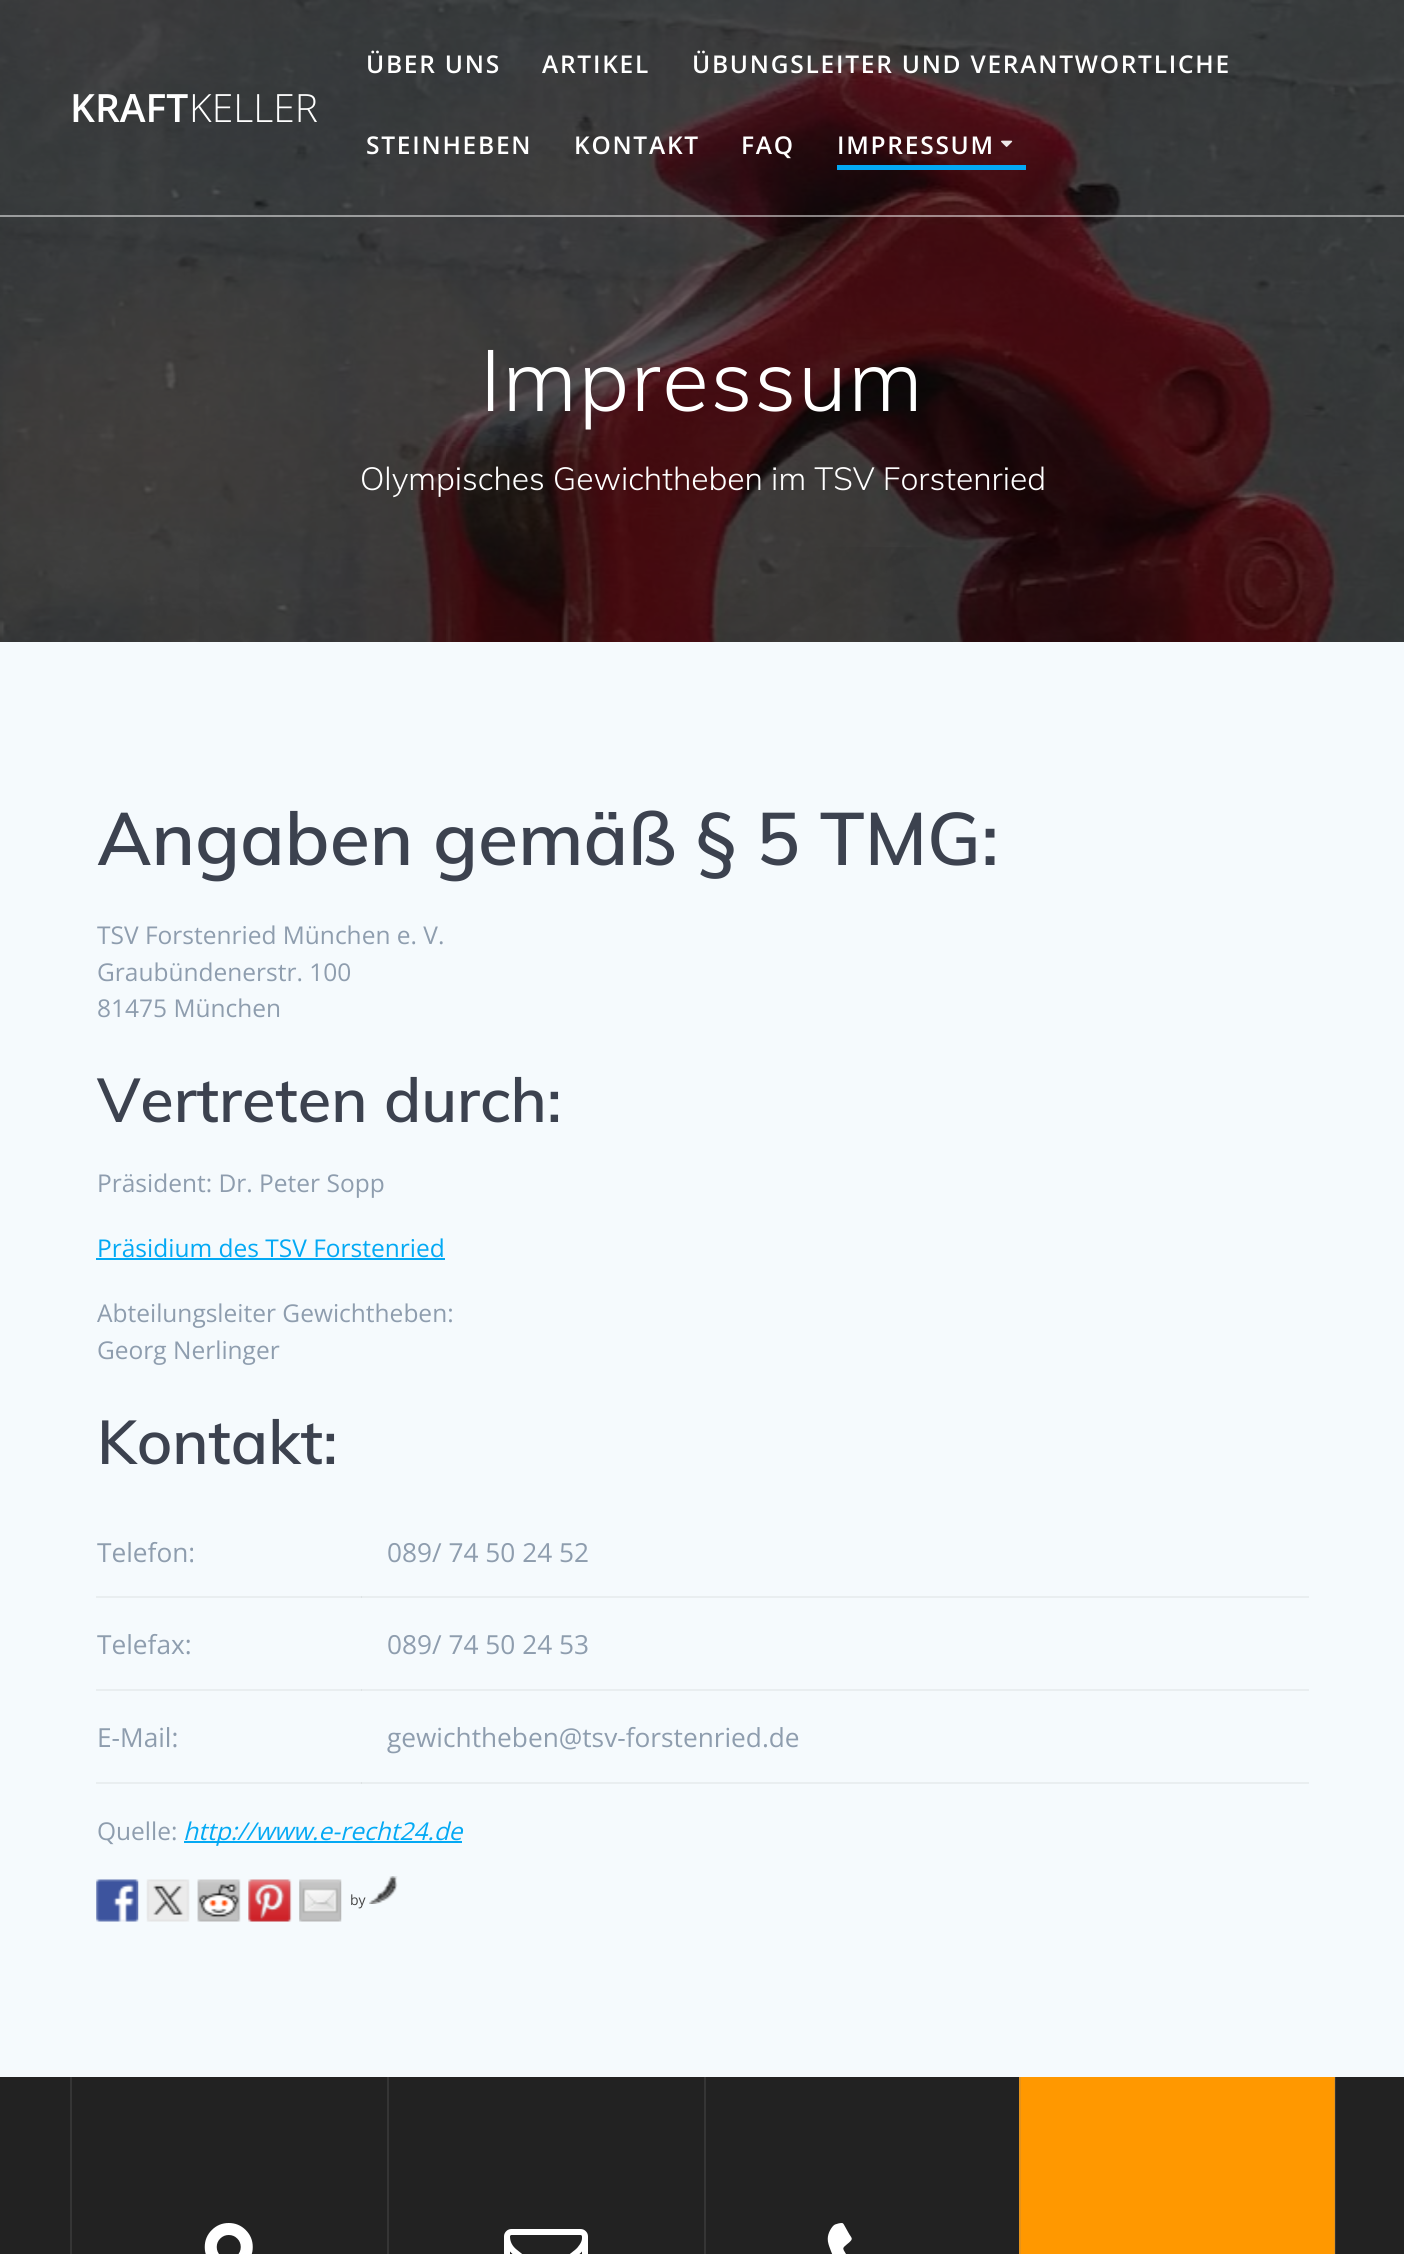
import math
import cairo

surface = cairo.ImageSurface(cairo.FORMAT_RGB24, 1404, 2254)
c = cairo.Context(surface)
options = cairo.FontOptions()
options.set_hint_metrics(cairo.HINT_METRICS_OFF)
options.set_hint_style(cairo.HINT_STYLE_NONE)
c.set_font_options(options)
c.set_miter_limit(4)
def C(code):
 c.set_source_rgb(*(v / 255 for v in bytes.fromhex(code[-6:])))
def F(family, size, italic, bold):
 c.select_font_face(family, cairo.FONT_SLANT_ITALIC if italic else cairo.FONT_SLANT_NORMAL, cairo.FONT_WEIGHT_BOLD if bold else cairo.FONT_WEIGHT_NORMAL)
 c.set_font_size(size)
def T(x, y, s):
 c.move_to(x, y)
 c.show_text(s)
def L(x, y, s, letter, word):
 c.move_to(x, y)
 for ch in s:
  c.show_text(ch)
  c.rel_move_to(letter + word * (ch == ' '), 0)
def R(x, y, w, h):
 c.rectangle(x, y, w, h)
 c.fill()
def I(path, x, y, w, h):
 c.save()
 c.set_source_surface(cairo.ImageSurface.create_from_png(path), x, y)
 c.rectangle(x, y, w, h)
 c.fill()
 c.restore()
C('ffffff')
c.paint()
I('2.png',0,0,1404,642)
c.set_source_rgba(1,1,1,0.5)
R(0,215,1404,2)
F('Open Sans SemiBold',39,0,0)
C('ffffff')
T(70,122,'KRAFT')
F('Open Sans Light',39,0,0)
T(189,122,'KELLER')
F('Open Sans SemiBold',24.5,0,0)
L(366,73,'ÜBER UNS',1.75,0)
L(542,73,'ARTIKEL',1.75,0)
L(692,73,'ÜBUNGSLEITER UND VERANTWORTLICHE',1.75,0)
L(366,154,'STEINHEBEN',1.75,0)
L(574,154,'KONTAKT',1.75,0)
L(741,154,'FAQ',1.75,0)
C('03a9f4')
R(837,165,189,5)
C('ffffff')
L(837,154,'IMPRESSUM',1.75,0)
I('1.png',1001,140,12,7)
F('Muli Light',85.75,0,0)
L(480,411,'Impressum',1.5,0)
F('Muli Light',31.85,0,0)
T(360,490,'Olympisches Gewichtheben im TSV Forstenried')
I('3.png',199,547,754,95)
C('f5fafd')
R(0,642,1404,1435)
C('e9eef0')
R(96,1596,1213,2)
R(96,1689,1213,2)
R(96,1782,1213,2)
F('Muli SemiBold',73.5,0,0)
C('3c424f')
T(97,865,'Angaben gemäß § 5 TMG:')
F('Open Sans',24.5,0,0)
C('8e9dae')
T(97,944,'TSV Forstenried München e. V.')
T(97,981,'Graubündenerstr. 100')
T(97,1017,'81475 München')
F('Muli SemiBold',61.25,0,0)
C('3c424f')
T(97,1122,'Vertreten durch:')
F('Open Sans',24.5,0,0)
C('8e9dae')
T(97,1192,'Präsident: Dr. Peter Sopp')
C('03a9f4')
T(97,1257,'Präsidium des TSV Forstenried')
R(96,1258,349,2)
C('8e9dae')
T(97,1322,'Abteilungsleiter Gewichtheben:')
T(97,1359,'Georg Nerlinger')
F('Muli SemiBold',61.25,0,0)
C('3c424f')
T(97,1464,'Kontakt:')
F('Open Sans',26.25,0,0)
C('8e9dae')
T(97,1562,'Telefon:')
C('dde2e4')
R(361,1596,1,2)
C('8e9dae')
T(387,1562,'089/ 74 50 24 52')
T(97,1654,'Telefax:')
C('dde2e4')
R(361,1689,1,2)
C('8e9dae')
T(387,1654,'089/ 74 50 24 53')
T(97,1747,'E-Mail:')
C('dde2e4')
R(361,1782,1,2)
C('8e9dae')
T(387,1747,'gewichtheben@tsv-forstenried.de')
F('Open Sans',24.5,0,0)
T(97,1840,'Quelle:')
C('03a9f4')
R(184,1841,278,2)
F('Open Sans',24.5,1,0)
T(183,1840,'http://www.e-recht24.de')
I('4.png',96,1879,43,43)
I('5.png',146,1879,44,43)
I('6.png',197,1879,44,43)
I('7.png',248,1879,44,43)
I('8.png',299,1879,43,43)
F('Open Sans',14,0,0)
C('444444')
T(350,1905,'by')
I('9.png',369,1876,29,28)
C('222222')
R(0,2077,1404,177)
C('353535')
R(1335,2077,1,177)
R(70,2077,2,177)
I('10.png',204,2223,49,31)
R(387,2077,2,177)
I('11.png',504,2229,84,25)
R(704,2077,2,177)
I('12.png',827,2223,25,31)
C('ff9800')
R(1021,2077,313,177)
C('e6931a')
R(1334,2077,1,177)
R(1019,2077,2,177)
surface.write_to_png('o.png')
